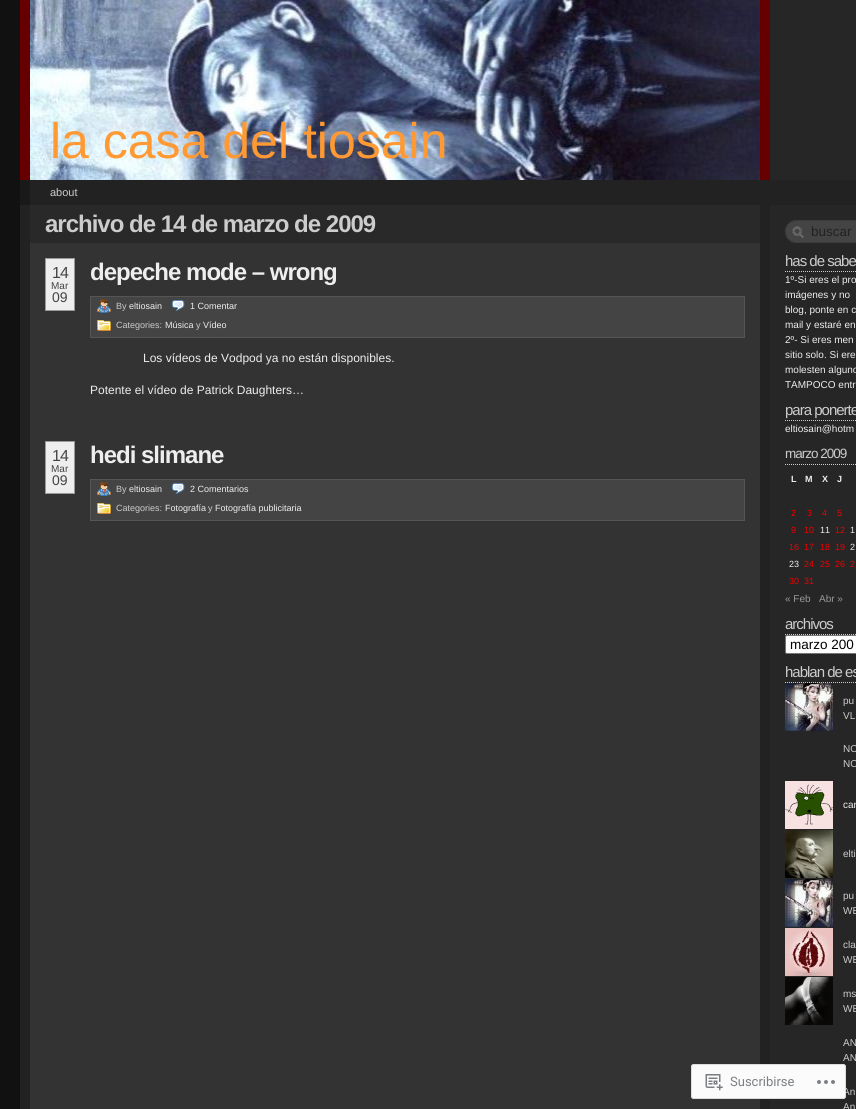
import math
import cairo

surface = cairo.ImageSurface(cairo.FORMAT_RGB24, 856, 1109)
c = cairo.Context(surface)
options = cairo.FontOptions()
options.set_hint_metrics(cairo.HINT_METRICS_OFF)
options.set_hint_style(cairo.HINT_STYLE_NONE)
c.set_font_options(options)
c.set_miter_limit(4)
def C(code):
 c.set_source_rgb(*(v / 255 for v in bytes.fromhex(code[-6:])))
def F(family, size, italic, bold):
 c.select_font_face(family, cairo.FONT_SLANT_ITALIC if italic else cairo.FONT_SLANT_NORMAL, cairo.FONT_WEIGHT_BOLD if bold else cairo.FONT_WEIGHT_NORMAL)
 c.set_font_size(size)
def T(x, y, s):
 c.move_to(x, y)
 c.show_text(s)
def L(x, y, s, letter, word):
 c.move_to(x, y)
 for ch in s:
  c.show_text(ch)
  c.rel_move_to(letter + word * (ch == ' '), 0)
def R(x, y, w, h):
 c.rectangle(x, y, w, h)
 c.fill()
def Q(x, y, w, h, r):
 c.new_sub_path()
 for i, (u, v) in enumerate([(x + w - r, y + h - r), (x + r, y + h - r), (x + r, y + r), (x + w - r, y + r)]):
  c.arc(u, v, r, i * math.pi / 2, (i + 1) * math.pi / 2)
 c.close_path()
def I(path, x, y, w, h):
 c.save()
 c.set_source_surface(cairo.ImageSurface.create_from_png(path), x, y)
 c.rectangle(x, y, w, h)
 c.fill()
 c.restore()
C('111111')
c.paint()
I('1.png',30,0,730,180)
C('660000')
R(760,0,10,180)
R(20,0,10,180)
F('Liberation Sans',50,0,0)
C('ff9933')
T(50,158,'la casa del tiosain')
C('262626')
R(770,0,86,180)
C('222222')
R(30,180,826,25)
C('191919')
R(20,180,10,25)
F('Liberation Sans',11,0,0)
C('cccccc')
T(50,196,'about')
C('333333')
R(30,243,730,866)
C('222222')
R(760,205,10,904)
R(20,205,10,904)
C('292929')
R(30,205,730,38)
F('Liberation Sans',24,0,1)
C('cccccc')
L(45,232,'archivo de 14 de marzo de 2009',-1,0)
C('eeeeee')
c.rectangle(45.5,258.5,29,52)
c.fill_preserve()
C('999999')
c.set_line_width(1)
c.stroke()
F('Liberation Sans',16,0,0)
C('444444')
L(52,278,'14',-1,0)
F('Liberation Sans',10,0,0)
T(51,289,'Mar')
F('Liberation Sans',14,0,0)
T(52,302,'09')
F('Liberation Sans',24,0,1)
C('eeeeee')
L(90,280,'depeche mode – wrong',-1,0)
C('444444')
c.rectangle(90.5,296.5,654,41)
c.fill_preserve()
C('555555')
c.stroke()
I('2.png',97,299,14,14)
F('Liberation Sans',9,0,0)
C('cccccc')
T(116,309,'By')
C('eeeeee')
T(129,309,'eltiosain')
I('3.png',171,300,14,11)
T(190,309,'1 Comentar')
I('4.png',97,320,14,11)
C('cccccc')
T(116,328,'Categories:')
C('eeeeee')
T(165,328,'Música')
C('cccccc')
T(196,328,'y')
C('eeeeee')
T(203,328,'Vídeo')
F('Liberation Sans',12,0,0)
T(143,362,'Los vídeos de Vodpod ya no están disponibles.')
T(90,394,'Potente el vídeo de Patrick Daughters…')
c.rectangle(45.5,441.5,29,52)
c.fill_preserve()
C('999999')
c.stroke()
F('Liberation Sans',16,0,0)
C('444444')
L(52,461,'14',-1,0)
F('Liberation Sans',10,0,0)
T(51,472,'Mar')
F('Liberation Sans',14,0,0)
T(52,485,'09')
F('Liberation Sans',24,0,1)
C('eeeeee')
L(90,463,'hedi slimane',-1,0)
C('444444')
c.rectangle(90.5,479.5,654,41)
c.fill_preserve()
C('555555')
c.stroke()
I('2.png',97,482,14,14)
F('Liberation Sans',9,0,0)
C('cccccc')
T(116,492,'By')
C('eeeeee')
T(129,492,'eltiosain')
I('3.png',171,483,14,11)
T(190,492,'2 Comentarios')
I('4.png',97,503,14,11)
C('cccccc')
T(116,511,'Categories:')
C('eeeeee')
T(165,511,'Fotografía')
C('cccccc')
T(208,511,'y')
C('eeeeee')
T(215,511,'Fotografía publicitaria')
C('262626')
R(770,205,86,904)
C('444444')
Q(785,220,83,23,11.5)
c.fill()
I('5.png',792,226,12,12)
c.new_path()
c.move_to(796.5,220.5)
c.line_to(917.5,220.5)
c.curve_to(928,223,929.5,237.5,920,241.5)
c.curve_to(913.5,244,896,242.5,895.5,242.5)
c.line_to(794.5,242.5)
c.curve_to(781.5,239.5,783.5,220.5,796.5,220.5)
c.close_path()
C('333333')
c.set_dash([1,1])
c.stroke()
F('Liberation Sans',13.5,0,0)
C('222222')
T(811,236,'buscar')
c.new_path()
c.move_to(785,271.5)
c.line_to(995,271.5)
C('cccccc')
c.stroke()
F('Liberation Sans',15,0,0)
L(785,266,'has de sabe',-1,0)
F('Liberation Sans',10,0,0)
C('eeeeee')
T(785,283,'1º-Si eres el pro')
T(785,298,'imágenes y no')
T(785,313,'blog, ponte en c')
T(785,328,'mail y estaré en')
T(785,343,'2º- Si eres men')
T(785,358,'sitio solo. Si ere')
T(785,373,'molesten alguno')
T(785,388,'TAMPOCO entr')
c.new_path()
c.move_to(785,420.5)
c.line_to(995,420.5)
C('cccccc')
c.stroke()
F('Liberation Sans',15,0,0)
L(785,415,'para ponerte',-1,0)
F('Liberation Sans',10,0,0)
C('eeeeee')
T(785,432,'eltiosain@hotm')
c.new_path()
c.move_to(785,464.5)
c.line_to(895,464.5)
C('cccccc')
c.stroke()
F('Liberation Sans',13.5,0,0)
L(785,458,'marzo 2009',-1,0)
F('Liberation Sans',9,0,1)
C('eeeeee')
T(791,482,'L')
T(805,482,'M')
T(822,482,'X')
T(837,482,'J')
F('Liberation Sans',9,0,0)
C('ee0000')
T(791,516,'2')
T(807,516,'3')
T(822,516,'4')
T(837,516,'5')
T(791,533,'9')
T(804,533,'10')
C('eeeeee')
T(820,533,'11')
C('ee0000')
T(835,533,'12')
C('eeeeee')
T(850,533,'1')
C('ee0000')
T(789,550,'16')
T(804,550,'17')
T(820,550,'18')
T(835,550,'19')
C('eeeeee')
T(850,550,'2')
T(789,567,'23')
C('ee0000')
T(804,567,'24')
T(820,567,'25')
T(835,567,'26')
T(850,567,'2')
T(789,584,'30')
T(804,584,'31')
F('Liberation Sans',10,0,0)
C('999999')
T(785,602,'« Feb')
T(819,602,'Abr »')
c.new_path()
c.move_to(785,634.5)
c.line_to(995,634.5)
C('cccccc')
c.stroke()
F('Liberation Sans',15,0,0)
L(785,629,'archivos',-1,0)
C('ffffff')
Q(785.5,635.5,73,18,1.5)
c.fill_preserve()
C('767676')
c.set_dash([])
c.stroke()
F('Liberation Sans',13.5,0,0)
C('000000')
T(790,649,'marzo 200')
c.new_path()
c.move_to(785,682.5)
c.line_to(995,682.5)
C('cccccc')
c.set_dash([1,1])
c.stroke()
F('Liberation Sans',15,0,0)
L(785,677,'hablan de es',-1,0)
I('6.png',785,683,48,48)
F('Liberation Sans',10,0,0)
T(843,704,'pu')
T(843,719,'VL')
T(843,752,'NO')
T(843,767,'NO')
I('7.png',785,781,48,48)
C('eeeeee')
T(843,808,'car')
I('8.png',785,830,48,48)
C('cccccc')
T(843,857,'elti')
I('6.png',785,879,48,48)
T(843,899,'pu')
T(843,914,'WE')
I('9.png',785,928,48,48)
T(843,948,'cla')
T(843,963,'WE')
I('10.png',785,977,48,48)
T(843,997,'ms')
T(843,1012,'WE')
T(843,1046,'AN')
T(843,1061,'AN')
T(843,1095,'An')
T(843,1110,'An')
c.set_source_rgba(1,1,1,0.98)
Q(691,1064,155,35,3)
c.fill()
Q(691.5,1064.5,154,34,2.5)
c.set_source_rgba(0.863,0.863,0.871,0.98)
c.set_dash([])
c.stroke()
I('11.png',705,1074,18,17)
F('Roboto',13,0,0)
C('7b7f84')
T(730,1086,'Suscribirse')
I('12.png',817,1080,18,4)
surface.write_to_png('o.png')
